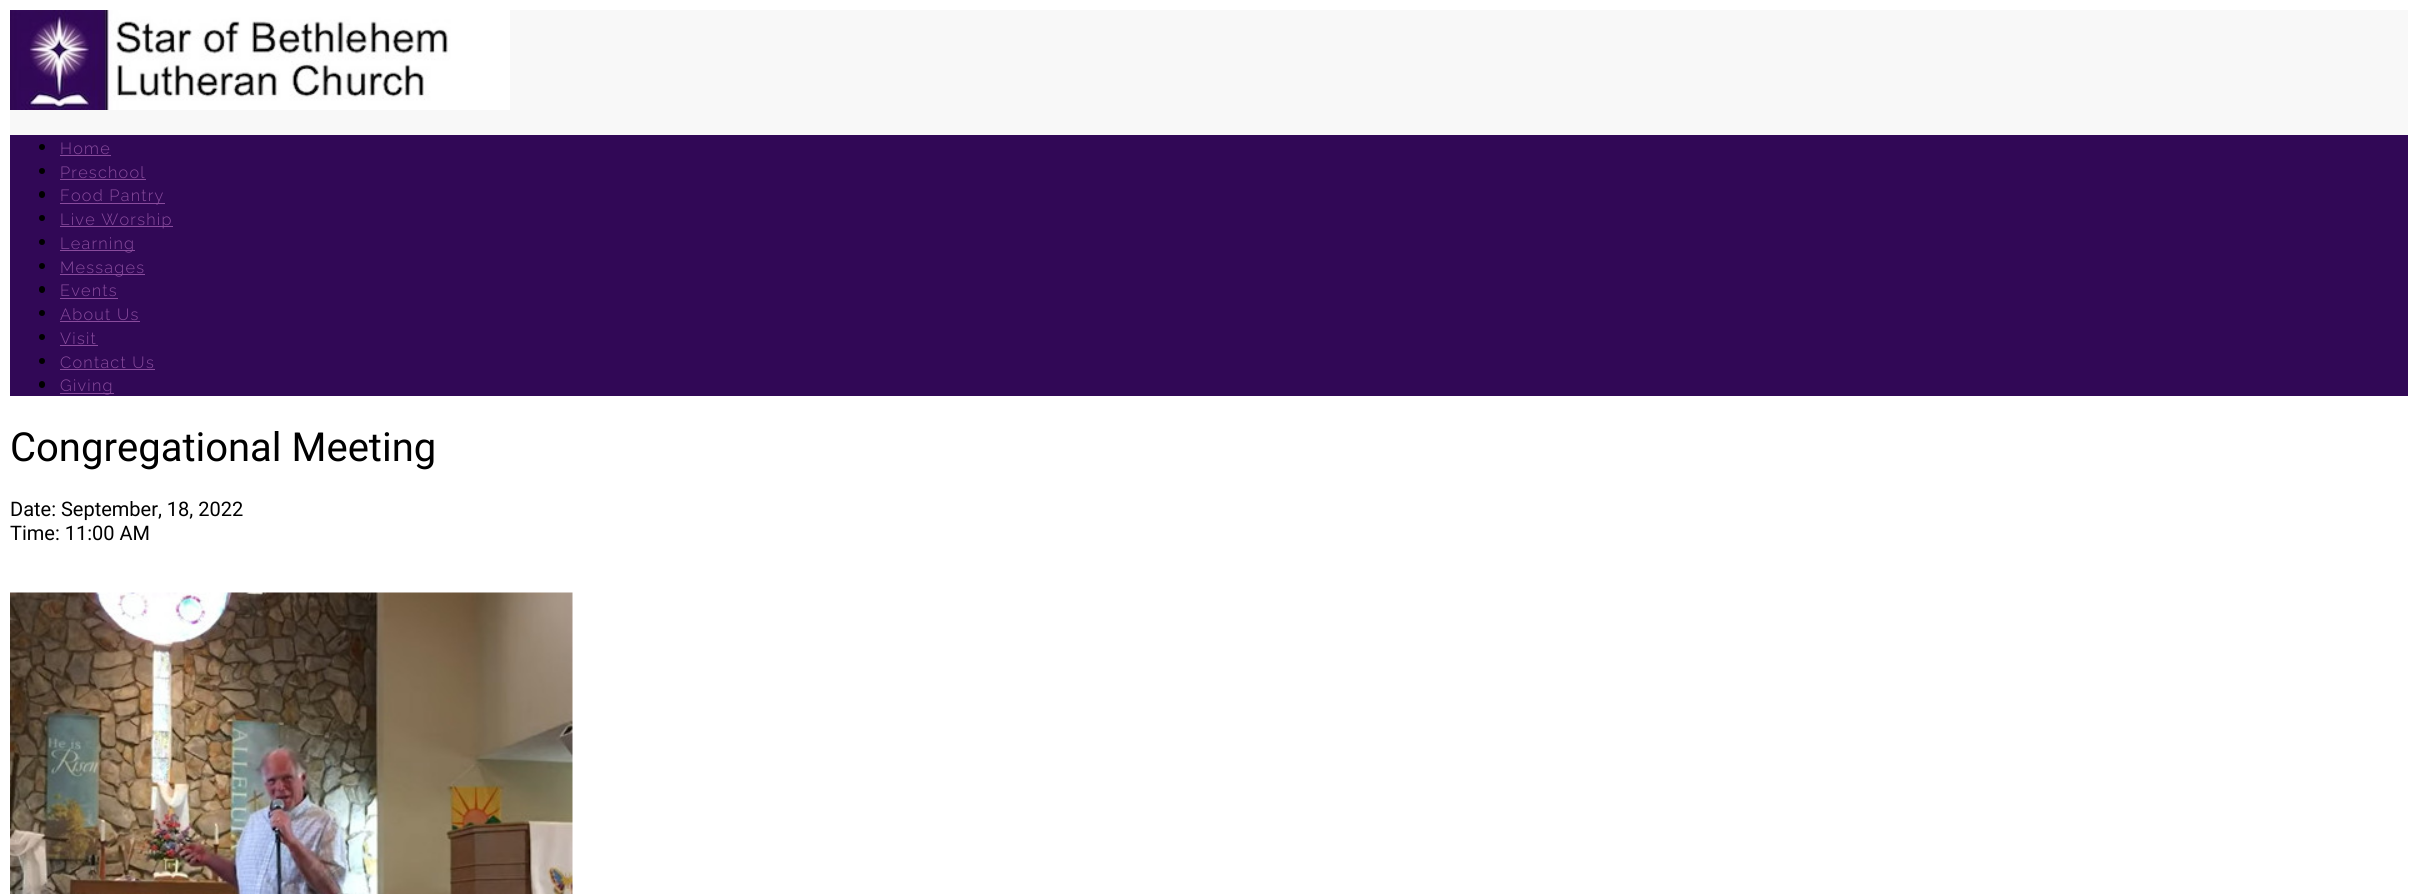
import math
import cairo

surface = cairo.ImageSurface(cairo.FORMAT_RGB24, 2417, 894)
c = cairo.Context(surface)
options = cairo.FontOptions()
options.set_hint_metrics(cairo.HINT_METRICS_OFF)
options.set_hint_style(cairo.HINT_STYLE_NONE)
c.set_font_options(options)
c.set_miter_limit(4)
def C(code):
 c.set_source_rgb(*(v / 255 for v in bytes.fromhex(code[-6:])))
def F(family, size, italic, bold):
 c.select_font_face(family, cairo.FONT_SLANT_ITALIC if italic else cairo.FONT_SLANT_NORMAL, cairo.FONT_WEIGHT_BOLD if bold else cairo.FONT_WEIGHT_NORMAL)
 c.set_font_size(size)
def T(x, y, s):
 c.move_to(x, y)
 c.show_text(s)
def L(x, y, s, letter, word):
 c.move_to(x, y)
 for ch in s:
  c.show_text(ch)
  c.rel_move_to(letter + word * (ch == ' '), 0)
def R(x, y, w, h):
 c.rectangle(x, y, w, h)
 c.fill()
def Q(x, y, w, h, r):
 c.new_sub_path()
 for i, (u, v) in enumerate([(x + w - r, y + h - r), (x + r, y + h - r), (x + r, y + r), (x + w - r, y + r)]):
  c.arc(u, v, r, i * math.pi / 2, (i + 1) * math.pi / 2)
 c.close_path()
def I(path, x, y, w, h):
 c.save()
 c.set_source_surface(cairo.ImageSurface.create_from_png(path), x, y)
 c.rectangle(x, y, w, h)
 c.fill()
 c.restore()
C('ffffff')
c.paint()
C('f8f8f8')
R(10,10,2398,125)
I('1.png',10,10,500,100)
C('310856')
R(10,135,2398,261)
C('000000')
c.arc(42,147,3,0,2 * math.pi)
c.fill()
F('Raleway Thin',16.25,0,0)
C('894b9d')
L(60,154,'Home',1.25,0)
R(60,155,51,1)
C('000000')
c.new_path()
c.arc(42,171,3,0,2 * math.pi)
c.fill()
C('894b9d')
L(60,178,'Preschool',1.25,0)
R(60,179,86,1)
C('000000')
Q(39,191,6,7,3)
c.fill()
C('894b9d')
R(60,203,105,1)
L(60,201,'Food Pantry',1.25,0)
C('000000')
c.new_path()
c.arc(42,218,3,0,2 * math.pi)
c.fill()
C('894b9d')
R(60,226,113,1)
L(60,225,'Live Worship',1.25,0)
C('000000')
c.new_path()
c.arc(42,242,3,0,2 * math.pi)
c.fill()
C('894b9d')
R(60,250,75,1)
L(60,249,'Learning',1.25,0)
C('000000')
c.new_path()
c.arc(42,266,3,0,2 * math.pi)
c.fill()
C('894b9d')
R(60,274,85,1)
L(60,273,'Messages',1.25,0)
C('000000')
Q(39,286,6,7,3)
c.fill()
C('894b9d')
L(60,296,'Events',1.25,0)
R(60,298,58,1)
C('000000')
c.new_path()
c.arc(42,313,3,0,2 * math.pi)
c.fill()
C('894b9d')
L(60,320,'About Us',1.25,0)
R(60,321,80,1)
C('000000')
c.new_path()
c.arc(42,337,3,0,2 * math.pi)
c.fill()
C('894b9d')
L(60,344,'Visit',1.25,0)
R(60,345,38,1)
C('000000')
c.new_path()
c.arc(42,361,3,0,2 * math.pi)
c.fill()
C('894b9d')
L(60,368,'Contact Us',1.25,0)
R(60,369,95,1)
C('000000')
Q(39,381,6,7,3)
c.fill()
C('894b9d')
R(60,393,54,1)
L(60,391,'Giving',1.25,0)
F('Roboto',40,0,0)
C('000000')
T(10,461,'Congregational Meeting')
F('Roboto',20,0,0)
T(10,516,'Date: September, 18, 2022')
T(10,540,'Time: 11:00 AM')
I('2.png',10,592,563,302)
surface.write_to_png('o.png')
